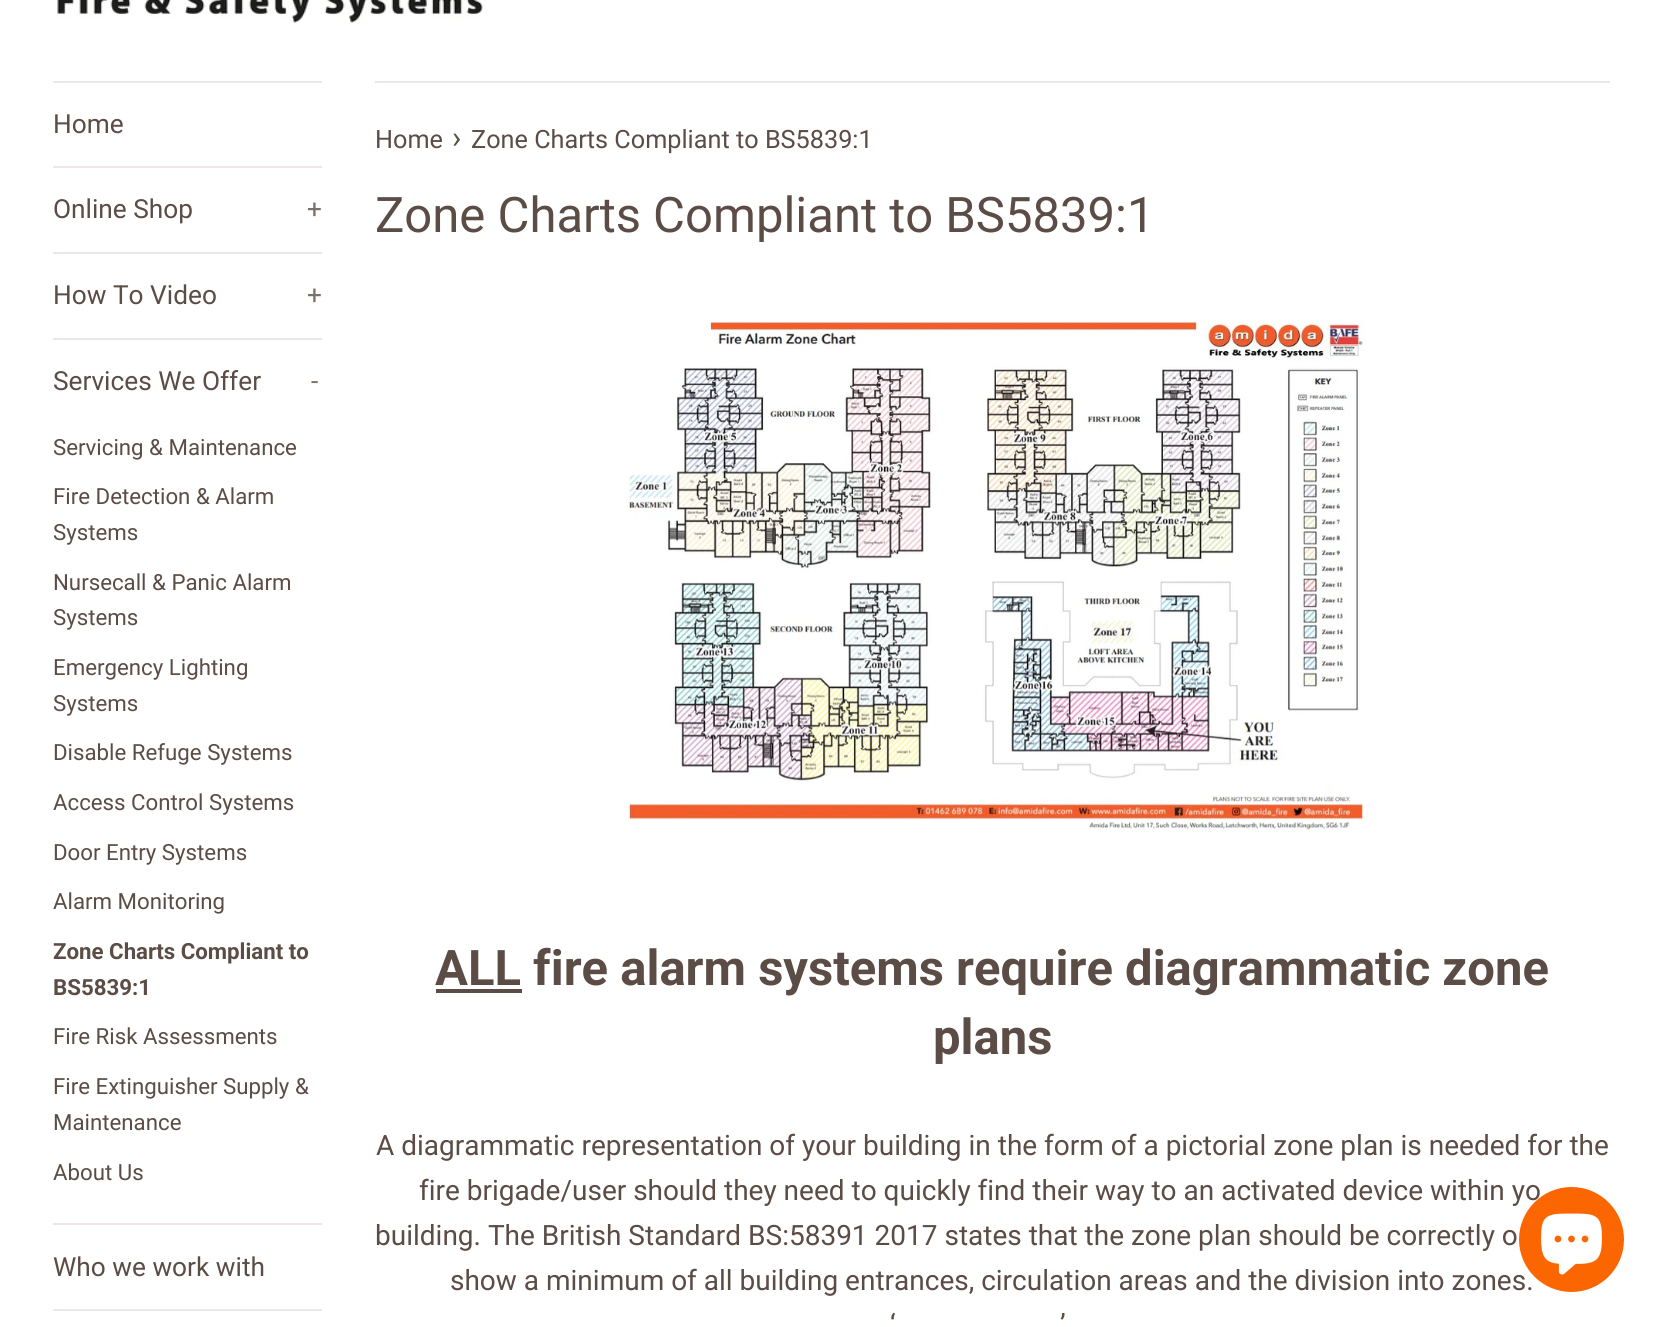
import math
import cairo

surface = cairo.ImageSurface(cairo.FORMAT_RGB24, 1662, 1327)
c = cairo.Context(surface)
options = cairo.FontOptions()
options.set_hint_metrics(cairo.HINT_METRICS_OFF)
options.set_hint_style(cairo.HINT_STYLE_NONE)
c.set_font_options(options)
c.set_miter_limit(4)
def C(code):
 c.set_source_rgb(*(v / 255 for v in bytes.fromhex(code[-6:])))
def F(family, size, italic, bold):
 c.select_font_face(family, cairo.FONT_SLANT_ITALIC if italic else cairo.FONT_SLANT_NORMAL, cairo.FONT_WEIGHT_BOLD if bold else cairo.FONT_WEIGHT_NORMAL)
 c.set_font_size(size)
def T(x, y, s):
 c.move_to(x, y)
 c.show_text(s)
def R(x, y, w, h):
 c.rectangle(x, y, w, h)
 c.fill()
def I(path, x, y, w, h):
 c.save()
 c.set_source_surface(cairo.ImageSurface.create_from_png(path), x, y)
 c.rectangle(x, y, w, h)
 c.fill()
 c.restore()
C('ffffff')
c.paint()
I('1.png',57,0,428,23)
C('ede8e7')
R(53,81,269,2)
R(53,166,269,2)
F('Roboto',26.25,0,0)
C('5b4c45')
T(53,133,'Home')
C('ede8e7')
R(53,252,269,2)
C('5b4c45')
T(53,218,'Online Shop')
C('7c706a')
T(307,218,'+')
C('ede8e7')
R(53,338,269,2)
C('5b4c45')
T(53,304,'How To Video')
C('7c706a')
T(307,304,'+')
C('ede8e7')
R(53,1223,269,2)
C('5b4c45')
T(53,390,'Services We Offer')
C('7c706a')
T(311,390,'-')
F('Roboto',22.25,0,0)
C('5b4c45')
T(53,455,'Servicing & Maintenance')
T(53,504,'Fire Detection & Alarm')
T(53,540,'Systems')
T(53,590,'Nursecall & Panic Alarm')
T(53,625,'Systems')
T(53,675,'Emergency Lighting')
T(53,711,'Systems')
T(53,760,'Disable Refuge Systems')
T(53,810,'Access Control Systems')
T(53,860,'Door Entry Systems')
T(53,909,'Alarm Monitoring')
F('Roboto',22.25,0,1)
T(53,959,'Zone Charts Compliant to')
T(53,995,'BS5839:1')
F('Roboto',22.25,0,0)
T(53,1044,'Fire Risk Assessments')
T(53,1094,'Fire Extinguisher Supply &')
T(53,1130,'Maintenance')
T(53,1180,'About Us')
C('ede8e7')
R(53,1309,269,2)
F('Roboto',26.25,0,0)
C('5b4c45')
T(53,1276,'Who we work with')
C('ede8e7')
R(375,81,1235,2)
F('Roboto',25.25,0,0)
C('5b4c45')
T(375,148,'Home')
F('Roboto',31,0,0)
T(452,148,'›')
F('Roboto',25.25,0,0)
T(471,148,'Zone Charts Compliant to BS5839:1')
F('Roboto',49,0,0)
T(375,232,'Zone Charts Compliant to BS5839:1')
I('2.png',627,320,737,513)
R(436,989,86,4)
F('Roboto',49,0,1)
T(435,985,'ALL fire alarm systems require diagrammatic zone')
T(933,1054,'plans')
F('Roboto',28,0,0)
T(376,1155,'A diagrammatic representation of your building in the form of a pictorial zone plan is needed for the')
T(419,1200,'fire brigade/user should they need to quickly find their way to an activated device within yo')
T(375,1245,'building. The British Standard BS:58391 2017 states that the zone plan should be correctly o')
T(450,1290,'show a minimum of all building entrances, circulation areas and the division into zones.')
T(890,1334,'‘')
T(1060,1334,'’')
C('fc6600')
c.new_path()
c.arc(1571.5,1239.5,52.5,0,2 * math.pi)
c.fill()
I('3.png',1541,1213,61,62)
surface.write_to_png('o.png')
